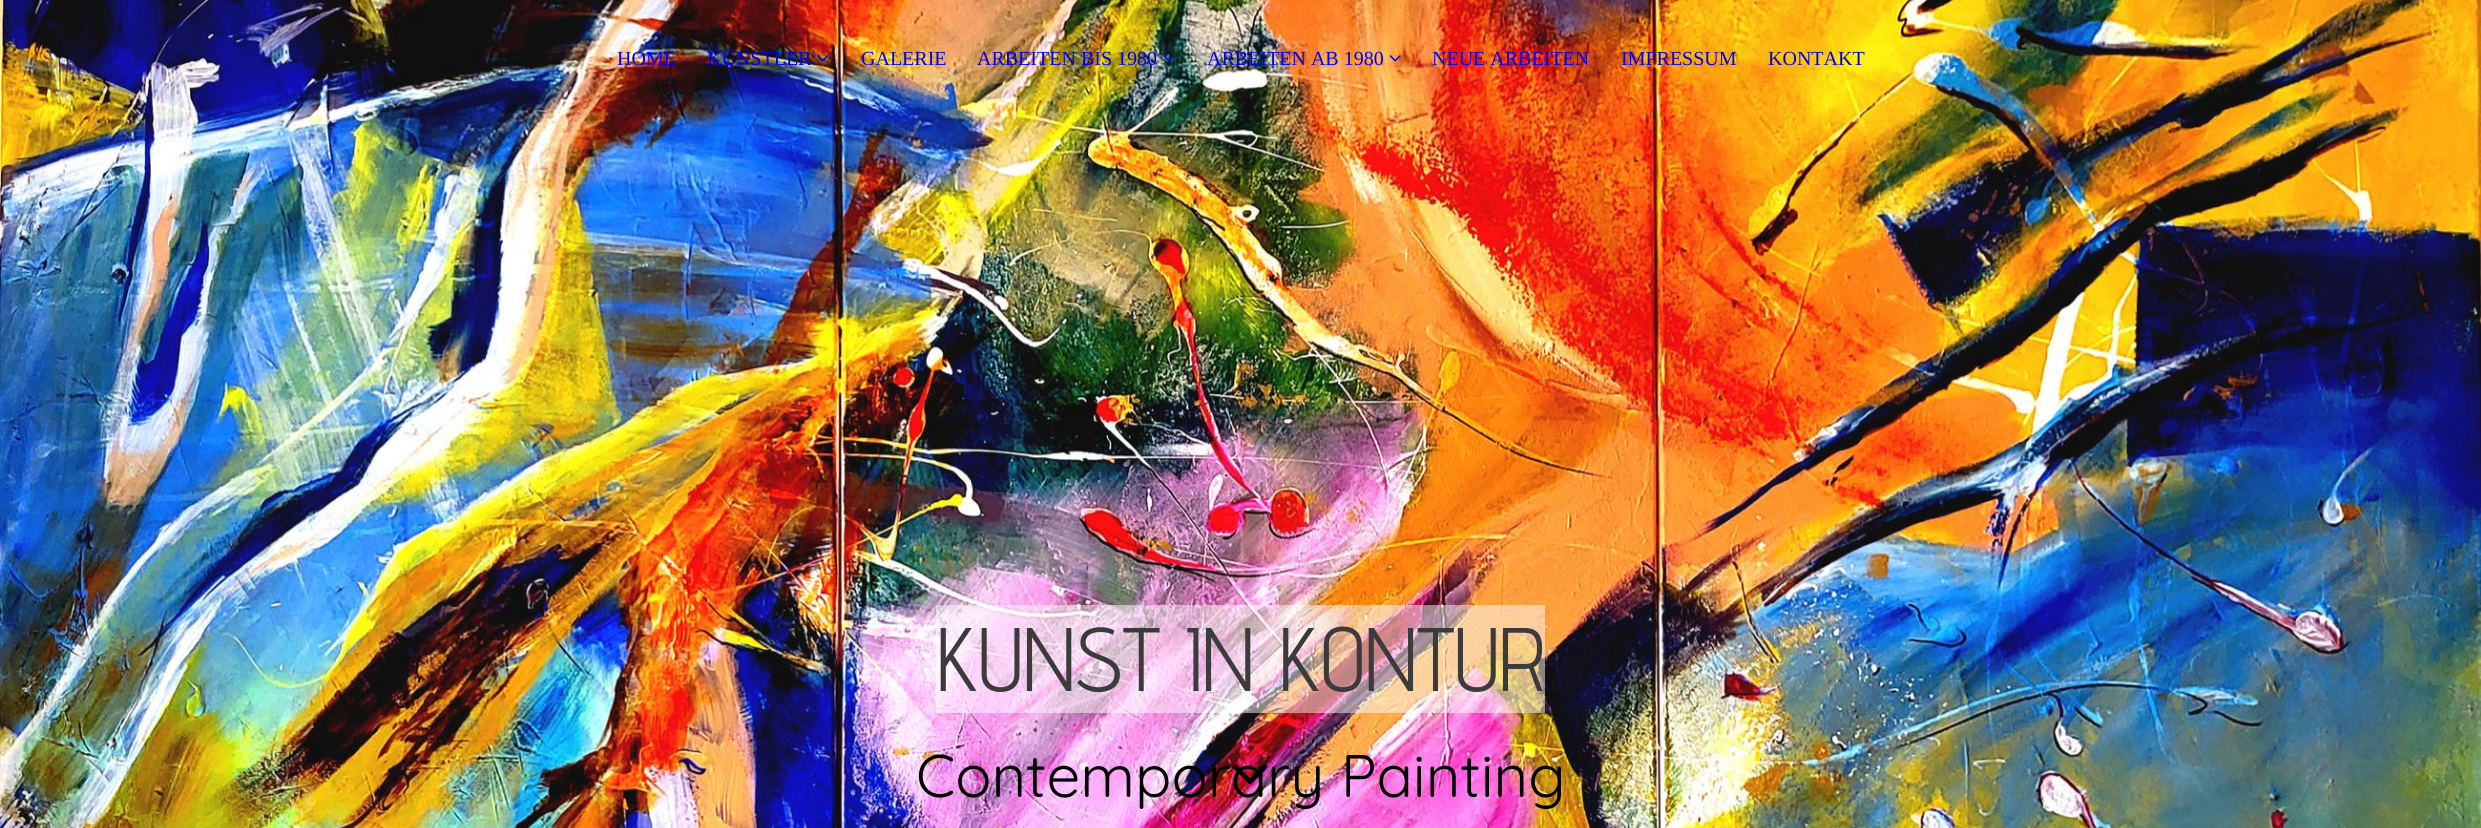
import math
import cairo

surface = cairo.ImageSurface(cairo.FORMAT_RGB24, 2481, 828)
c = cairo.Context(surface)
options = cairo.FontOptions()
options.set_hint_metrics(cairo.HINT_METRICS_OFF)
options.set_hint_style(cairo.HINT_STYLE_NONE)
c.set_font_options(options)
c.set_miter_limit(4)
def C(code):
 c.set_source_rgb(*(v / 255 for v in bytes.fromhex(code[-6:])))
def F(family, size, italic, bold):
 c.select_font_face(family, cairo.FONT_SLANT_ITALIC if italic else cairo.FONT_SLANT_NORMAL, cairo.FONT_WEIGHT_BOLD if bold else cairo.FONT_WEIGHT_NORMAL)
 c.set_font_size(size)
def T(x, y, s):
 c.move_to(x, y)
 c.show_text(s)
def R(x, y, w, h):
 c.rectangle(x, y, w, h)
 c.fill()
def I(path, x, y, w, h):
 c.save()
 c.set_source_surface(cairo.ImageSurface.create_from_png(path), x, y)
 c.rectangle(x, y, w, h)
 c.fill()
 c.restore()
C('ffffff')
c.paint()
I('4.png',0,0,2481,828)
F('Liberation Serif',20,0,0)
C('0000ee')
T(617,65,'HOME')
T(707,65,'KÜNSTLER')
I('1.png',817,55,12,7)
T(861,65,'GALERIE')
T(977,65,'ARBEITEN BIS 1980')
I('2.png',1163,55,12,7)
T(1207,65,'ARBEITEN AB 1980')
I('3.png',1389,55,12,7)
T(1432,65,'NEUE ARBEITEN')
T(1621,65,'IMPRESSUM')
T(1768,65,'KONTAKT')
c.set_source_rgba(1,1,1,0.49)
R(936,605,609,108)
F('Advent Pro',90,0,0)
C('3b3b3b')
T(937,691,'KUNST IN KONTUR')
F('Quicksand',60,0,0)
C('000000')
T(916,797,'Contemporary Painting')
I('5.png',1232,764,36,21)
surface.write_to_png('o.png')
